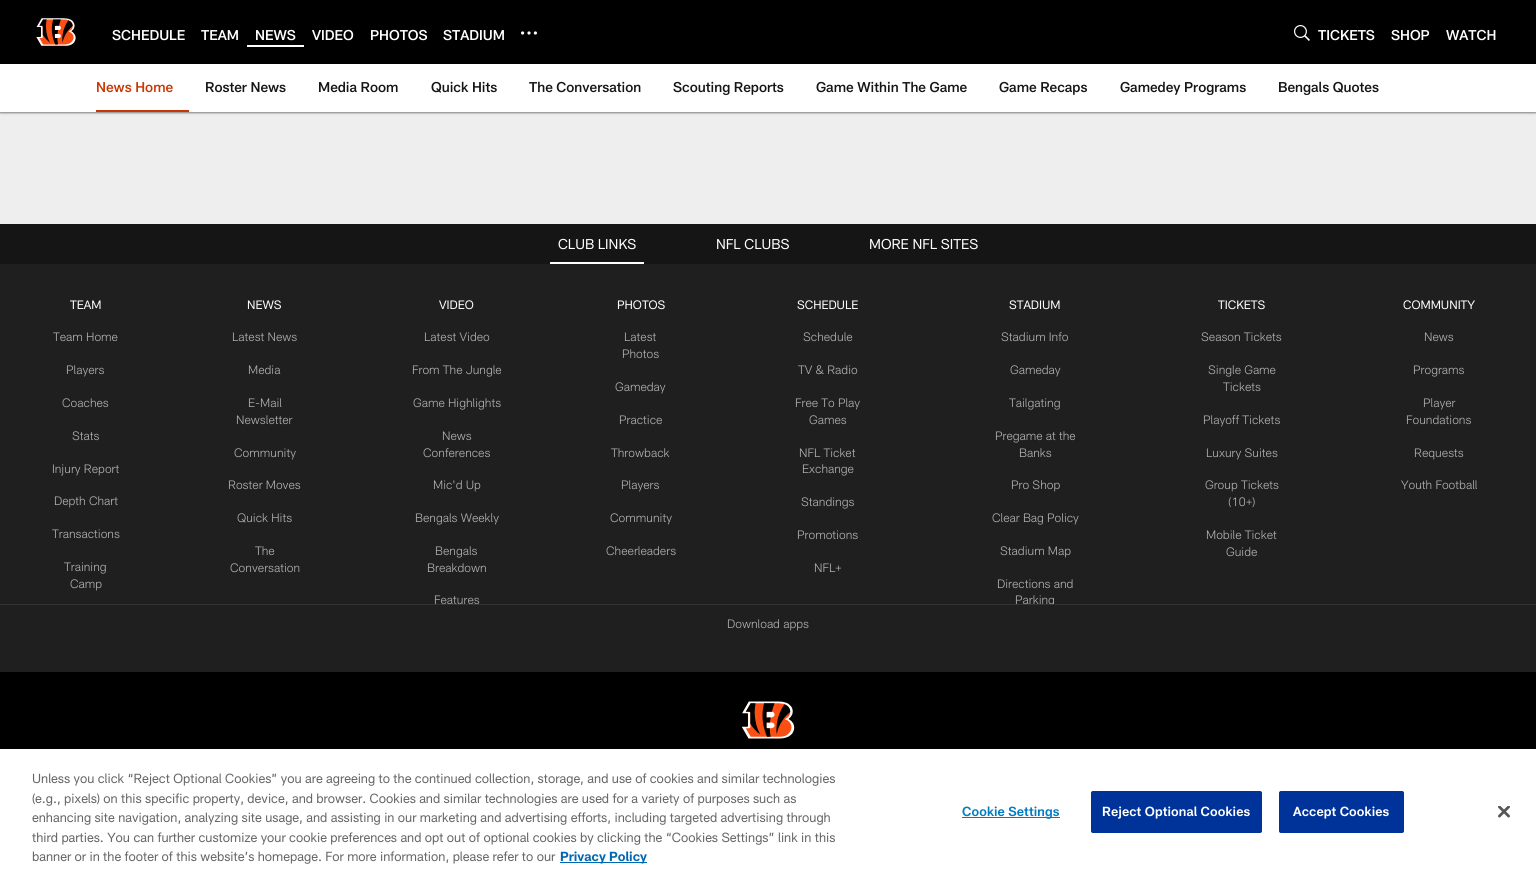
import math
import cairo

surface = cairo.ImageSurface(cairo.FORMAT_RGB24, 1536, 877)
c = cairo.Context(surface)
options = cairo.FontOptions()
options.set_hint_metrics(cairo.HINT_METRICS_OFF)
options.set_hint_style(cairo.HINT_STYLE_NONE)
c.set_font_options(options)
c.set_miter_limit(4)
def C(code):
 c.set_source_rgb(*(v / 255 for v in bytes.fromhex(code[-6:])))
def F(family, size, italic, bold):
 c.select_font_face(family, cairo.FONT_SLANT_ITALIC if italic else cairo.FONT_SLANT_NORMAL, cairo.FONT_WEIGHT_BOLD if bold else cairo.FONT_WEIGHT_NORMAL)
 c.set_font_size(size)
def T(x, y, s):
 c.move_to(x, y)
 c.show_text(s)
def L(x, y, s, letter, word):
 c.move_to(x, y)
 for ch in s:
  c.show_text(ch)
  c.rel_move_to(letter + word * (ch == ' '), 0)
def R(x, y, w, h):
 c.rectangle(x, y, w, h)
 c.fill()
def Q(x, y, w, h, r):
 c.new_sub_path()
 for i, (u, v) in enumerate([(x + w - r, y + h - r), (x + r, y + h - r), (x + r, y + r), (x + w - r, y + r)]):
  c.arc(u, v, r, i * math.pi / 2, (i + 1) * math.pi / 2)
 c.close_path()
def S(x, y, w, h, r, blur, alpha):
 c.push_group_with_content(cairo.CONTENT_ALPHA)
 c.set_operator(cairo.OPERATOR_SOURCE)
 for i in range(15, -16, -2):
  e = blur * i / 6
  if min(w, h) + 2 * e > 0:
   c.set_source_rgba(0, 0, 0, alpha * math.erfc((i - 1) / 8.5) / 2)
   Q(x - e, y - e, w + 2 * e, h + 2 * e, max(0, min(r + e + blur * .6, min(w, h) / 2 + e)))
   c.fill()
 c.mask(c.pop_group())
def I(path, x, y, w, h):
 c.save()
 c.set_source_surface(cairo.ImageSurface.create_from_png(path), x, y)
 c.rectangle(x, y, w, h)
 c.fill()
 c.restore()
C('eeeeee')
c.paint()
C('000000')
R(0,0,1536,64)
I('1.png',36,18,40,28)
F('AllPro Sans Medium',14,0,0)
C('ffffff')
T(112,40,'SCHEDULE')
T(201,40,'TEAM')
R(247,45,57,2)
T(255,40,'NEWS')
T(312,40,'VIDEO')
T(370,40,'PHOTOS')
T(443,40,'STADIUM')
c.new_path()
c.arc(535.4,33,1.6,0,2 * math.pi)
c.fill()
c.arc(529,33,1.6,0,2 * math.pi)
c.fill()
c.arc(522.6,33,1.6,0,2 * math.pi)
c.fill()
I('2.png',1294,25,16,16)
T(1318,40,'TICKETS')
T(1391,40,'SHOP')
T(1446,40,'WATCH')
C('000000')
S(0,65,1536,48,0,1,.47)
C('ffffff')
R(0,64,1536,48)
C('c93603')
R(96,110,93,2)
T(96,92,'News Home')
C('151515')
T(205,92,'Roster News')
T(318,92,'Media Room')
T(431,92,'Quick Hits')
T(529,92,'The Conversation')
T(673,92,'Scouting Reports')
T(816,92,'Game Within The Game')
T(999,92,'Game Recaps')
T(1120,92,'Gamedey Programs')
T(1278,92,'Bengals Quotes')
C('1f1f1f')
R(0,264,1536,340)
C('151515')
R(0,224,1536,40)
C('ffffff')
R(550,262,94,2)
F('AllPro Sans',14,0,0)
T(558,249,'CLUB LINKS')
T(716,249,'NFL CLUBS')
T(869,249,'MORE NFL SITES')
F('AllPro Sans',12,0,0)
T(70,309,'TEAM')
F('AllPro Sans Light',12,0,0)
C('b2b2b2')
T(53,341,'Team Home')
T(66,374,'Players')
T(62,407,'Coaches')
T(72,440,'Stats')
T(52,473,'Injury Report')
T(54,505,'Depth Chart')
T(52,538,'Transactions')
T(64,571,'Training')
T(70,588,'Camp')
F('AllPro Sans',12,0,0)
C('ffffff')
T(247,309,'NEWS')
F('AllPro Sans Light',12,0,0)
C('b2b2b2')
T(232,341,'Latest News')
T(248,374,'Media')
T(248,407,'E-Mail')
T(236,424,'Newsletter')
T(234,457,'Community')
T(228,489,'Roster Moves')
T(237,522,'Quick Hits')
T(255,555,'The')
T(230,572,'Conversation')
F('AllPro Sans',12,0,0)
C('ffffff')
T(439,309,'VIDEO')
F('AllPro Sans Light',12,0,0)
C('b2b2b2')
T(424,341,'Latest Video')
T(412,374,'From The Jungle')
T(413,407,'Game Highlights')
T(442,440,'News')
T(423,457,'Conferences')
T(433,489,'Mic\'d Up')
T(415,522,'Bengals Weekly')
T(435,555,'Bengals')
T(427,572,'Breakdown')
c.save()
c.rectangle(0,224,1536,380)
c.clip()
T(434,604,'Features')
c.restore()
F('AllPro Sans',12,0,0)
C('ffffff')
T(617,309,'PHOTOS')
F('AllPro Sans Light',12,0,0)
C('b2b2b2')
T(624,341,'Latest')
T(622,358,'Photos')
T(615,391,'Gameday')
T(619,424,'Practice')
T(611,457,'Throwback')
T(621,489,'Players')
T(610,522,'Community')
T(606,555,'Cheerleaders')
F('AllPro Sans',12,0,0)
C('ffffff')
T(797,309,'SCHEDULE')
F('AllPro Sans Light',12,0,0)
C('b2b2b2')
T(803,341,'Schedule')
T(798,374,'TV & Radio')
T(795,407,'Free To Play')
T(809,424,'Games')
T(799,457,'NFL Ticket')
T(802,473,'Exchange')
T(801,506,'Standings')
T(797,539,'Promotions')
T(814,572,'NFL+')
F('AllPro Sans',12,0,0)
C('ffffff')
T(1009,309,'STADIUM')
F('AllPro Sans Light',12,0,0)
C('b2b2b2')
T(1001,341,'Stadium Info')
T(1010,374,'Gameday')
T(1009,407,'Tailgating')
T(995,440,'Pregame at the')
T(1019,457,'Banks')
T(1011,489,'Pro Shop')
T(992,522,'Clear Bag Policy')
T(1000,555,'Stadium Map')
T(997,588,'Directions and')
c.save()
c.rectangle(0,224,1536,380)
c.clip()
T(1015,604,'Parking')
c.restore()
F('AllPro Sans',12,0,0)
C('ffffff')
T(1218,309,'TICKETS')
F('AllPro Sans Light',12,0,0)
C('b2b2b2')
T(1201,341,'Season Tickets')
T(1208,374,'Single Game')
T(1223,391,'Tickets')
T(1203,424,'Playoff Tickets')
T(1206,457,'Luxury Suites')
T(1205,489,'Group Tickets')
T(1228,506,'(10+)')
T(1206,539,'Mobile Ticket')
T(1226,556,'Guide')
F('AllPro Sans',12,0,0)
C('ffffff')
T(1403,309,'COMMUNITY')
F('AllPro Sans Light',12,0,0)
C('b2b2b2')
T(1424,341,'News')
T(1413,374,'Programs')
T(1423,407,'Player')
T(1406,424,'Foundations')
T(1414,457,'Requests')
T(1401,489,'Youth Football')
C('1f1f1f')
R(0,605,1536,67)
C('333333')
R(0,604,1536,1)
C('b2b2b2')
T(727,628,'Download apps')
C('000000')
R(0,672,1536,77)
I('3.png',741,701,54,38)
C('000000')
S(0,749,1536,128,0,9,.2)
C('ffffff')
R(0,749,1536,128)
F('AllPro Sans',13,0,0)
C('666666')
T(32,783,'Unless you click “Reject Optional Cookies” you are agreeing to the continued collection, storage, and use of cookies and similar technologies')
T(32,803,'(e.g., pixels) on this specific property, device, and browser. Cookies and similar technologies are used for a variety of purposes such as')
T(32,822,'enhancing site navigation, analyzing site usage, and assisting in our marketing and advertising efforts, including targeted advertising through')
T(32,842,'third parties. You can further customize your cookie preferences and opt out of optional cookies by clicking the “Cookies Settings” link in this')
T(32,861,'banner or in the footer of this website’s homepage. For more information, please refer to our')
C('0067b1')
R(560,862,87,1)
F('AllPro Sans',13,0,1)
T(560,861,'Privacy Policy')
C('007dc3')
R(962,817,98,1)
F('AllPro Sans SemiBold',13,0,0)
L(962,816,'Cookie Settings',.1,0)
C('003399')
Q(1091.5,791.5,170,41,1.5)
c.fill_preserve()
c.set_line_width(1)
c.stroke()
C('ffffff')
L(1102,816,'Reject Optional Cookies',.1,0)
C('003399')
Q(1279.5,791.5,124,41,1.5)
c.fill_preserve()
c.stroke()
C('ffffff')
L(1293,816,'Accept Cookies',.1,0)
I('4.png',1498,806,12,12)
surface.write_to_png('o.png')
